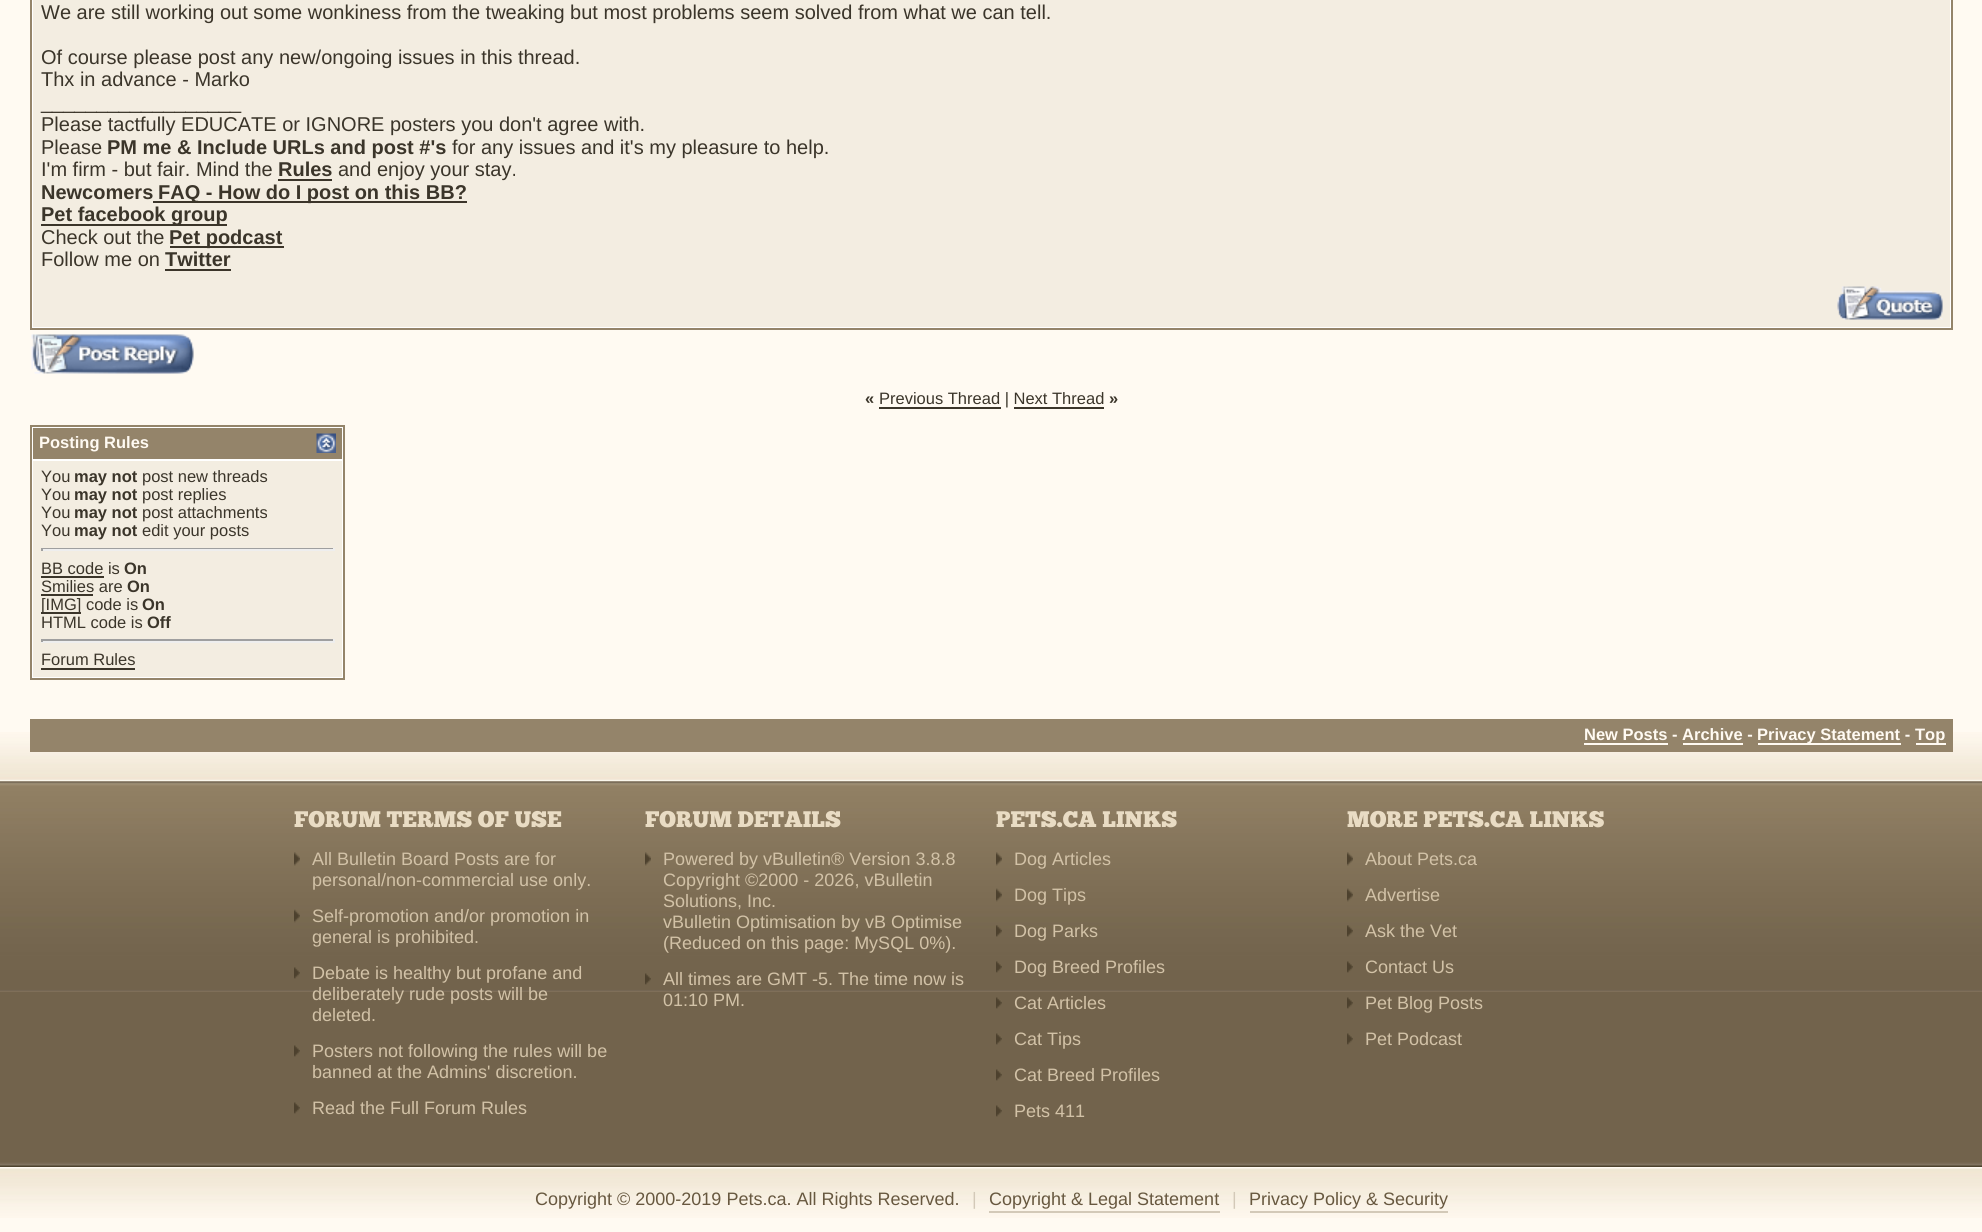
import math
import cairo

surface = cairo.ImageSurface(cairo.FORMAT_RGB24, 1982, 1232)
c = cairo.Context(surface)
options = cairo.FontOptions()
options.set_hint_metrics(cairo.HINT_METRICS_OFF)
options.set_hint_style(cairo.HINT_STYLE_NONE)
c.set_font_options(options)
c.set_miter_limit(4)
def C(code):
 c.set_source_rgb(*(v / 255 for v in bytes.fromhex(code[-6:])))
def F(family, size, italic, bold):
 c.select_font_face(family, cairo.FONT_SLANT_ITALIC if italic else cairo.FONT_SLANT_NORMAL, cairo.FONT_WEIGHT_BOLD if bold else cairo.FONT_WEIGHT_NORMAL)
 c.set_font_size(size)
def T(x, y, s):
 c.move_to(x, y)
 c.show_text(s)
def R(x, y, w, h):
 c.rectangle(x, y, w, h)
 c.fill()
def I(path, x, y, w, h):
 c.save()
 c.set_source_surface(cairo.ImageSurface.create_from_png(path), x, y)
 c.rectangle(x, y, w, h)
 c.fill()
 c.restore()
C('fffaf2')
c.paint()
I('1.png',0,732,1982,49)
C('ffffff')
c.rectangle(31,-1,1921,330)
c.fill_preserve()
C('94846a')
c.stroke()
C('f3ede1')
R(33,0,1917,327)
F('Liberation Sans',20,0,0)
C('3b352a')
T(41,19,'We are still working out some wonkiness from the tweaking but most problems seem solved from what we can tell.')
T(41,64,'Of course please post any new/ongoing issues in this thread.')
T(41,86,'Thx in advance - Marko')
T(41,109,'__________________')
T(41,131,'Please tactfully EDUCATE or IGNORE posters you don\'t agree with.')
T(41,154,'Please')
F('Liberation Sans',20,0,1)
T(107,154,'PM me & Include URLs and post #\'s')
F('Liberation Sans',20,0,0)
T(452,154,'for any issues and it\'s my pleasure to help.')
T(41,176,'I\'m firm - but fair. Mind the')
F('Liberation Sans',20,0,1)
T(278,176,'Rules')
R(278,179,54,2)
F('Liberation Sans',20,0,0)
T(338,176,'and enjoy your stay.')
F('Liberation Sans',20,0,1)
T(41,199,'Newcomers')
R(153,201,314,2)
T(158,199,'FAQ - How do I post on this BB?')
R(41,224,186,2)
T(41,221,'Pet facebook group')
F('Liberation Sans',20,0,0)
T(41,244,'Check out the')
R(170,246,114,2)
F('Liberation Sans',20,0,1)
T(169,244,'Pet podcast')
F('Liberation Sans',20,0,0)
T(41,266,'Follow me on')
F('Liberation Sans',20,0,1)
T(165,266,'Twitter')
R(165,269,66,2)
I('2.png',1837,286,106,34)
I('3.png',31,334,163,40)
F('Liberation Sans',16.5,0,1)
T(865,404,'«')
R(879,407,122,2)
F('Liberation Sans',16.5,0,0)
T(879,404,'Previous Thread | Next Thread')
F('Liberation Sans',16.5,0,1)
T(1109,404,'»')
R(1014,407,90,2)
C('ffffff')
c.rectangle(31,426,313,253)
c.fill_preserve()
C('94846a')
c.stroke()
R(33,428,309,31)
C('fffaf2')
T(39,448,'Posting Rules')
I('4.png',316,433,20,20)
C('f3ede1')
R(33,461,309,216)
F('Liberation Sans',16.5,0,0)
C('3b352a')
T(41,482,'You')
F('Liberation Sans',16.5,0,1)
T(74,482,'may not')
F('Liberation Sans',16.5,0,0)
T(142,482,'post new threads')
T(41,500,'You')
F('Liberation Sans',16.5,0,1)
T(74,500,'may not')
F('Liberation Sans',16.5,0,0)
T(142,500,'post replies')
T(41,518,'You')
F('Liberation Sans',16.5,0,1)
T(74,518,'may not')
F('Liberation Sans',16.5,0,0)
T(142,518,'post attachments')
T(41,536,'You')
F('Liberation Sans',16.5,0,1)
T(74,536,'may not')
F('Liberation Sans',16.5,0,0)
T(142,536,'edit your posts')
C('9f9f9f')
R(41,548,294,1)
C('eeeeee')
R(333,548,2,3)
R(41,549,294,2)
C('9f9f9f')
R(41,548,2,3)
C('3b352a')
T(41,574,'BB code is')
R(41,576,63,2)
F('Liberation Sans',16.5,0,1)
T(124,574,'On')
F('Liberation Sans',16.5,0,0)
T(41,592,'Smilies are')
R(41,594,52,2)
F('Liberation Sans',16.5,0,1)
T(127,592,'On')
R(41,612,40,2)
F('Liberation Sans',16.5,0,0)
T(41,610,'[IMG] code is')
F('Liberation Sans',16.5,0,1)
T(142,610,'On')
F('Liberation Sans',16.5,0,0)
T(41,628,'HTML code is')
F('Liberation Sans',16.5,0,1)
T(147,628,'Off')
C('9f9f9f')
R(41,639,294,2)
C('eeeeee')
R(333,639,2,3)
R(41,641,294,2)
C('9f9f9f')
R(41,639,2,3)
F('Liberation Sans',16.5,0,0)
C('3b352a')
T(41,665,'Forum Rules')
R(41,668,94,2)
C('94846a')
R(30,719,1923,33)
F('Liberation Sans',16.5,0,1)
C('fffaf2')
T(1584,740,'New Posts - Archive -')
R(1584,743,84,2)
R(1683,743,60,2)
R(1758,743,143,2)
T(1757,740,'Privacy Statement -')
R(1916,743,30,2)
T(1915,740,'Top')
I('5.png',0,781,1982,386)
I('6.png',0,781,1982,211)
F('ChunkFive',22.5,0,0)
C('e9dcc4')
T(294,827,'FORUM TERMS OF USE')
I('7.png',294,852,6,14)
F('Liberation Sans',18,0,0)
C('d2c2a7')
T(312,865,'All Bulletin Board Posts are for')
T(312,886,'personal/non-commercial use only.')
I('8.png',294,909,6,14)
T(312,922,'Self-promotion and/or promotion in')
T(312,943,'general is prohibited.')
I('9.png',294,967,6,12)
T(312,979,'Debate is healthy but profane and')
T(312,1000,'deliberately rude posts will be')
T(312,1021,'deleted.')
I('10.png',294,1045,6,12)
T(312,1057,'Posters not following the rules will be')
T(312,1078,'banned at the Admins\' discretion.')
I('10.png',294,1102,6,12)
T(312,1114,'Read the Full Forum Rules')
F('ChunkFive',22.5,0,0)
C('e9dcc4')
T(645,827,'FORUM DETAILS')
I('11.png',645,852,6,14)
F('Liberation Sans',18,0,0)
C('d2c2a7')
T(663,865,'Powered by vBulletin® Version 3.8.8')
T(663,886,'Copyright ©2000 - 2026, vBulletin')
T(663,907,'Solutions, Inc.')
T(663,928,'vBulletin Optimisation by vB Optimise')
T(663,949,'(Reduced on this page: MySQL 0%).')
I('12.png',645,973,6,12)
T(663,985,'All times are GMT -5. The time now is')
T(663,1006,'01:10 PM.')
F('ChunkFive',22.5,0,0)
C('e9dcc4')
T(996,827,'PETS.CA LINKS')
I('11.png',996,852,6,14)
F('Liberation Sans',18,0,0)
C('d2c2a7')
T(1014,865,'Dog Articles')
I('13.png',996,888,6,14)
T(1014,901,'Dog Tips')
I('14.png',996,925,6,12)
T(1014,937,'Dog Parks')
I('15.png',996,961,6,12)
T(1014,973,'Dog Breed Profiles')
I('12.png',996,997,6,12)
T(1014,1009,'Cat Articles')
I('12.png',996,1033,6,12)
T(1014,1045,'Cat Tips')
I('12.png',996,1069,6,12)
T(1014,1081,'Cat Breed Profiles')
I('12.png',996,1105,6,12)
T(1014,1117,'Pets 411')
F('ChunkFive',22.5,0,0)
C('e9dcc4')
T(1347,827,'MORE PETS.CA LINKS')
I('7.png',1347,852,6,14)
F('Liberation Sans',18,0,0)
C('d2c2a7')
T(1365,865,'About Pets.ca')
I('16.png',1347,888,6,14)
T(1365,901,'Advertise')
I('17.png',1347,925,6,12)
T(1365,937,'Ask the Vet')
I('18.png',1347,961,6,12)
T(1365,973,'Contact Us')
I('10.png',1347,997,6,12)
T(1365,1009,'Pet Blog Posts')
I('10.png',1347,1033,6,12)
T(1365,1045,'Pet Podcast')
I('19.png',0,1168,1982,50)
C('67583f')
T(535,1205,'Copyright © 2000-2019 Pets.ca. All Rights Reserved.')
C('d3c9b8')
T(972,1205,'|')
C('67583f')
T(989,1205,'Copyright & Legal Statement')
C('d3c9b8')
R(989,1211,231,2)
T(1232,1205,'|')
C('67583f')
T(1249,1205,'Privacy Policy & Security')
C('d3c9b8')
R(1250,1211,198,2)
surface.write_to_png('o.png')
